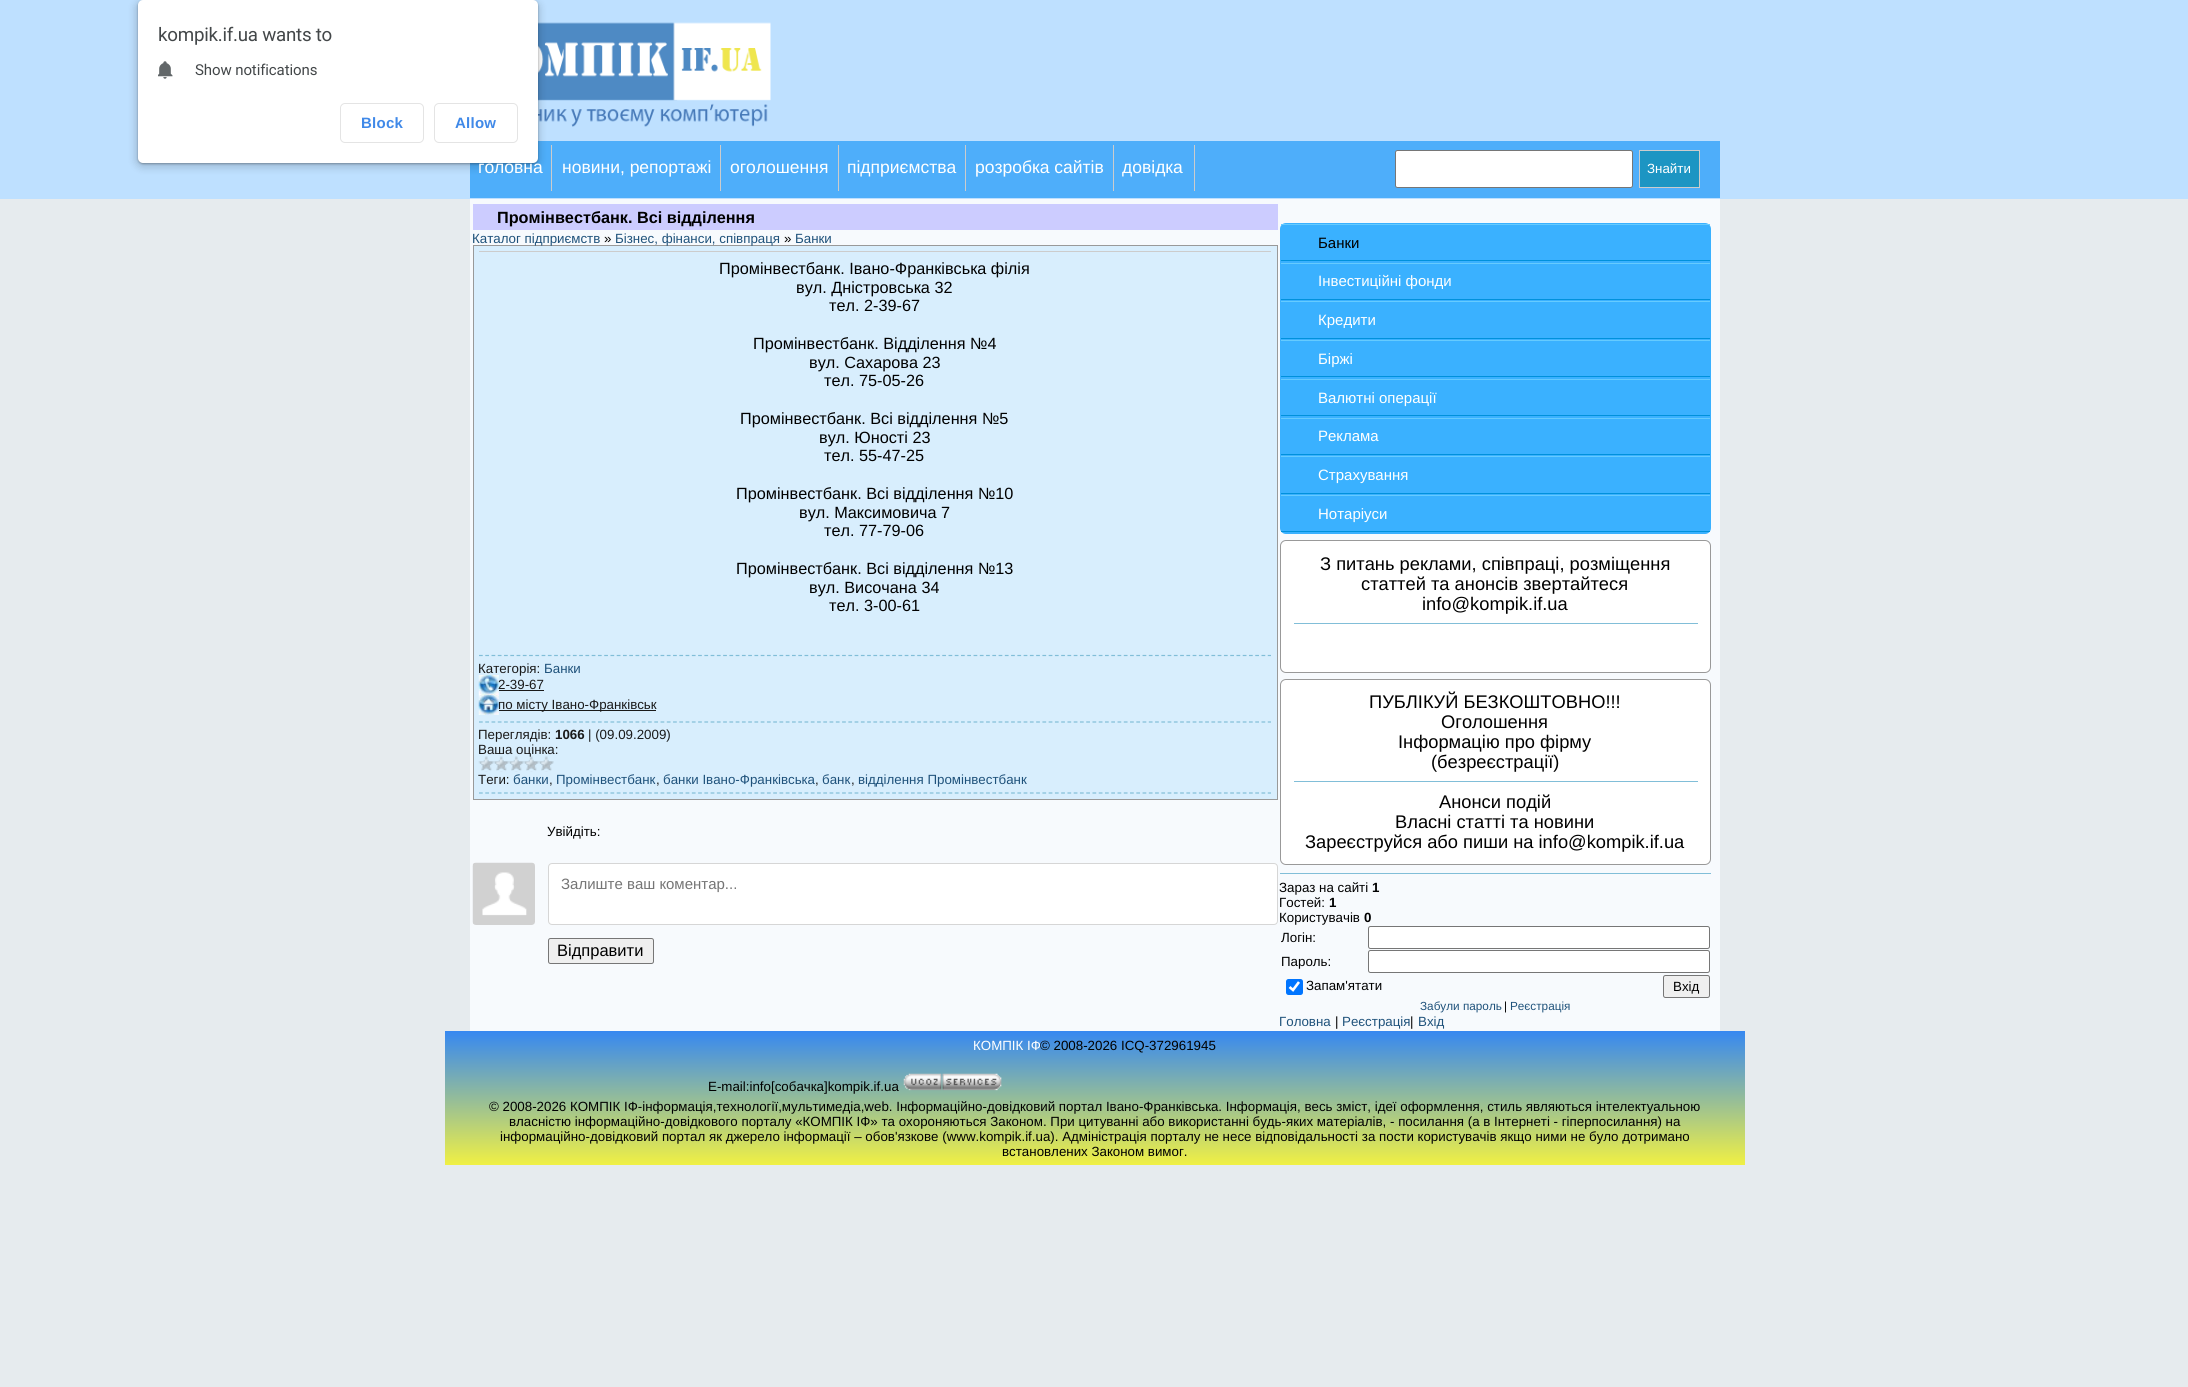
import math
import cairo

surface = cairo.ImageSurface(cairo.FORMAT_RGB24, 2188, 1387)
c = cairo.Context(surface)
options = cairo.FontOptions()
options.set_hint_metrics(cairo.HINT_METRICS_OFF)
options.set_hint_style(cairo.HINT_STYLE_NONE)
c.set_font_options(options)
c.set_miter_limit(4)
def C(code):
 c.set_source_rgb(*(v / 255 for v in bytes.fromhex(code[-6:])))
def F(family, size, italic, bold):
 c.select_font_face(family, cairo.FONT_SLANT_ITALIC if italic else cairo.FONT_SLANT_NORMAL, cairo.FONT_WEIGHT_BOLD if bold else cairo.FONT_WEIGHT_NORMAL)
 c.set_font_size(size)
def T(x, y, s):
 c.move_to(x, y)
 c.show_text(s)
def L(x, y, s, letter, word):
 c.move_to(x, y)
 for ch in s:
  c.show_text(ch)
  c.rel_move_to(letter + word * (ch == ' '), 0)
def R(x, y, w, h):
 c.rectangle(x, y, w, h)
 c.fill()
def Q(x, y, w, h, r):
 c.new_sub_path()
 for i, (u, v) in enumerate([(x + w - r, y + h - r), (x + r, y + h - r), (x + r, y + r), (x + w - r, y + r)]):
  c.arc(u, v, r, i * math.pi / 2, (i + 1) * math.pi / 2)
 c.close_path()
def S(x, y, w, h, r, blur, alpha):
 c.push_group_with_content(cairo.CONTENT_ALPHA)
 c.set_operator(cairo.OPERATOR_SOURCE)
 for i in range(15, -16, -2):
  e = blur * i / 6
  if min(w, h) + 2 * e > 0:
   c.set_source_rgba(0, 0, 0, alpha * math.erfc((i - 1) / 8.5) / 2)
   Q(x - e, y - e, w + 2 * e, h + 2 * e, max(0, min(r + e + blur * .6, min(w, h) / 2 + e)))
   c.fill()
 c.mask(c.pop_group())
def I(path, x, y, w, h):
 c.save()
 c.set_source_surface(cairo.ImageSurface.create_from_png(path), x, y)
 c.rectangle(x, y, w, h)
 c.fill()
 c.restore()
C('e6ebee')
c.paint()
C('bee0ff')
R(0,0,2188,199)
I('2.png',538,22,233,105)
C('4eaefa')
R(470,141,1250,57)
C('cccccc')
R(551,145,1,46)
C('000000')
S(135,0,405,168,8,4,.15)
S(138,1,400,163,5,1,.3)
C('ffffff')
Q(138,0,400,163,5)
c.fill()
F('Roboto',18.75,0,0)
C('434749')
L(158,41,'kompik.if.ua wants to',-.25,0)
I('1.png',158,61,15,18)
F('Roboto',15,0,0)
L(195,75,'Show notifications',-.1,0)
Q(340.5,103.5,83,39,4.5)
C('e4e4e4')
c.set_line_width(1)
c.stroke()
F('Liberation Sans',15,0,1)
C('4089e8')
L(361,128,'Block',.25,0)
Q(434.5,103.5,83,39,4.5)
C('e4e4e4')
c.stroke()
C('4089e8')
L(455,128,'Allow',.25,0)
F('Liberation Sans',17.5,0,0)
C('ffffff')
T(478,173,'головна')
C('cccccc')
R(720,145,1,46)
C('ffffff')
T(562,173,'новини, репортажі')
C('cccccc')
R(838,145,1,46)
C('ffffff')
T(730,173,'оголошення')
C('cccccc')
R(965,145,1,46)
C('ffffff')
T(847,173,'підприємства')
C('cccccc')
R(1113,145,1,46)
C('ffffff')
T(975,173,'розробка сайтів')
C('cccccc')
R(1194,145,1,46)
C('ffffff')
T(1122,173,'довідка')
Q(1395.5,150.5,237,37,2)
c.fill_preserve()
C('767676')
c.stroke()
C('1c95c3')
c.rectangle(1639.5,150.5,60,37)
c.fill_preserve()
C('cccccc')
c.stroke()
F('Liberation Sans',13.33,0,0)
C('ffffff')
T(1647,173,'Знайти')
C('f7fafd')
R(470,199,1250,832)
C('ccccff')
R(473,204,805,26)
F('Liberation Sans',16.25,0,1)
C('000000')
T(497,223,'Промінвестбанк. Всі відділення')
C('d8eefd')
c.rectangle(473.5,245.5,804,554)
c.fill_preserve()
C('999999')
c.stroke()
F('Liberation Sans',13.33,0,0)
C('1f527b')
T(472,243,'Каталог підприємств')
C('000000')
T(604,243,'»')
C('1f527b')
T(615,243,'Бізнес, фінанси, співпраця')
C('000000')
T(784,243,'»')
C('1f527b')
T(795,243,'Банки')
C('cccccc')
R(479,251,792,1)
F('Liberation Sans',16.25,0,0)
C('000000')
T(719,274,'Промінвестбанк. Івано-Франківська філія')
T(796,293,'вул. Дністровська 32')
T(829,311,'тел. 2-39-67')
T(753,349,'Промінвестбанк. Відділення №4')
T(809,368,'вул. Сахарова 23')
T(824,386,'тел. 75-05-26')
T(740,424,'Промінвестбанк. Всі відділення №5')
T(819,443,'вул. Юності 23')
T(824,461,'тел. 55-47-25')
T(736,499,'Промінвестбанк. Всі відділення №10')
T(799,518,'вул. Максимовича 7')
T(824,536,'тел. 77-79-06')
T(736,574,'Промінвестбанк. Всі відділення №13')
T(809,593,'вул. Височана 34')
T(829,611,'тел. 3-00-61')
c.new_path()
c.move_to(479,655.5)
c.line_to(1271,655.5)
C('81bed8')
c.set_line_width(1.2)
c.set_dash([3.75,2.51])
c.stroke()
c.new_path()
c.move_to(479,722)
c.line_to(1271,722)
c.stroke()
F('Liberation Sans',13.33,0,0)
C('1a1a1a')
T(478,673,'Категорія:')
C('1f527b')
T(544,673,'Банки')
I('3.png',478,675,21,20)
C('1a1a1a')
T(498,689,'2-39-67')
R(499,690,45,1)
I('4.png',478,695,21,20)
R(499,710,157,1)
T(498,709,'по місту Івано-Франківськ')
c.new_path()
c.move_to(479,793)
c.line_to(1271,793)
C('81bed8')
c.stroke()
C('1a1a1a')
T(478,739,'Переглядів:')
F('Liberation Sans',13.33,0,1)
T(555,739,'1066')
F('Liberation Sans',13.33,0,0)
T(588,739,'| (09.09.2009)')
T(478,754,'Ваша оцінка:')
I('5.png',478,756,76,16)
T(478,784,'Теги:')
C('1f527b')
T(513,784,'банки')
C('1a1a1a')
T(549,784,',')
C('1f527b')
T(556,784,'Промінвестбанк')
C('1a1a1a')
T(656,784,',')
C('1f527b')
T(663,784,'банки Івано-Франківська')
C('1a1a1a')
T(815,784,',')
C('1f527b')
T(822,784,'банк')
C('1a1a1a')
T(851,784,',')
C('1f527b')
T(858,784,'відділення Промінвестбанк')
C('000000')
T(547,836,'Увійдіть:')
I('6.png',472,862,63,63)
C('ffffff')
Q(548.5,863.5,729,61,3.5)
c.fill_preserve()
C('d6d6d6')
c.set_line_width(1)
c.set_dash([])
c.stroke()
F('Liberation Sans',15,0,0)
C('757575')
T(561,889,'Залиште ваш коментар...')
C('efefef')
Q(548.5,938.5,105,25,2)
c.fill_preserve()
C('767676')
c.stroke()
F('Liberation Sans',16.5,0,0)
C('000000')
T(557,956,'Відправити')
C('3ab1ff')
Q(1280,223,431,311,6)
c.fill()
C('65cbff')
R(1281,224,429,1)
C('0091dc')
R(1281,260,429,1)
F('Liberation Sans',15,0,0)
C('000000')
T(1318,248,'Банки')
C('65cbff')
R(1281,263,429,1)
C('0091dc')
R(1281,299,429,1)
C('ffffff')
T(1318,286,'Інвестиційні фонди')
C('65cbff')
R(1281,301,429,1)
C('0091dc')
R(1281,338,429,1)
C('ffffff')
T(1318,325,'Кредити')
C('65cbff')
R(1281,340,429,1)
C('0091dc')
R(1281,376,429,1)
C('ffffff')
T(1318,364,'Біржі')
C('65cbff')
R(1281,379,429,1)
C('0091dc')
R(1281,415,429,1)
C('ffffff')
T(1318,403,'Валютні операції')
C('65cbff')
R(1281,418,429,1)
C('0091dc')
R(1281,454,429,1)
C('ffffff')
T(1318,441,'Реклама')
C('65cbff')
R(1281,456,429,1)
C('0091dc')
R(1281,493,429,1)
C('ffffff')
T(1318,480,'Страхування')
C('65cbff')
R(1281,495,429,1)
C('0091dc')
R(1281,531,429,1)
C('ffffff')
T(1318,519,'Нотаріуси')
Q(1280.5,540.5,430,132,5.5)
c.fill_preserve()
C('999999')
c.stroke()
F('Liberation Sans',18.3,0,0)
C('000000')
T(1320,570,'З питань реклами, співпраці, розміщення')
T(1361,590,'статтей та анонсів звертайтеся')
T(1422,610,'info@kompik.if.ua')
C('81bed8')
R(1294,623,404,1)
C('ffffff')
Q(1280.5,679.5,430,185,5.5)
c.fill_preserve()
C('999999')
c.stroke()
C('000000')
T(1369,708,'ПУБЛІКУЙ БЕЗКОШТОВНО!!!')
T(1441,728,'Оголошення')
T(1398,748,'Інформацію про фірму')
T(1431,768,'(безреєстрації)')
C('81bed8')
R(1294,781,404,1)
C('000000')
T(1439,808,'Анонси подій')
T(1395,828,'Власні статті та новини')
T(1305,848,'Зареєструйся або пиши на info@kompik.if.ua')
C('81bed8')
R(1280,873,431,1)
F('Liberation Sans',13.33,0,0)
C('000000')
T(1279,892,'Зараз на сайті')
F('Liberation Sans',13.33,0,1)
T(1372,892,'1')
F('Liberation Sans',13.33,0,0)
T(1279,907,'Гостей:')
F('Liberation Sans',13.33,0,1)
T(1329,907,'1')
F('Liberation Sans',13.33,0,0)
T(1279,922,'Користувачів')
F('Liberation Sans',13.33,0,1)
T(1364,922,'0')
F('Liberation Sans',13.33,0,0)
T(1281,942,'Логін:')
C('ffffff')
Q(1368.5,926.5,341,22,2)
c.fill_preserve()
C('767676')
c.stroke()
C('000000')
T(1281,966,'Пароль:')
C('ffffff')
Q(1368.5,950.5,341,22,2)
c.fill_preserve()
C('767676')
c.stroke()
C('0075ff')
Q(1286,979,17,16,2.5)
c.fill()
c.new_path()
c.move_to(1289.5,987)
c.line_to(1293,990)
c.line_to(1299,982)
C('ffffff')
c.set_line_width(2.6)
c.stroke()
C('000000')
T(1306,990,'Запам\'ятати')
C('efefef')
Q(1663.5,975.5,46,22,2)
c.fill_preserve()
C('767676')
c.set_line_width(1)
c.stroke()
C('000000')
T(1673,991,'Вхід')
F('Liberation Sans',11.75,0,0)
C('1f527b')
T(1420,1010,'Забули пароль')
C('000000')
T(1504,1010,'|')
C('1f527b')
T(1510,1010,'Реєстрація')
F('Liberation Sans',13.33,0,0)
T(1279,1026,'Головна')
C('000000')
T(1335,1026,'|')
C('1f527b')
T(1342,1026,'Реєстрація')
C('000000')
T(1410,1026,'|')
C('1f527b')
T(1418,1026,'Вхід')
gradient = cairo.LinearGradient(1095,1165,1095,1031)
gradient.add_color_stop_rgba(0,0.941,0.941,0.267,1)
gradient.add_color_stop_rgba(1,0.212,0.533,0.945,1)
c.set_source(gradient)
R(445,1031,1300,134)
C('ffffff')
T(973,1050,'КОМПІК ІФ')
C('000000')
T(1040,1050,'© 2008-2026 ICQ-372961945')
T(708,1091,'E-mail:info[собачка]kompik.if.ua')
I('7.png',903,1073,99,18)
T(489,1111,'© 2008-2026 КОМПІК ІФ-інформація,технології,мультимедіа,web. Інформаційно-довідковий портал Івано-Франківська. Інформація, весь зміст, ідеї оформлення, стиль являються інтелектуальною')
T(509,1126,'власністю інформаційно-довідкового порталу «КОМПІК ІФ» та охороняються Законом. При цитуванні або використанні будь-яких матеріалів, - посилання (а в Інтернеті - гіперпосилання) на')
T(500,1141,'інформаційно-довідковий портал як джерело інформації – обов\'язкове (www.kompik.if.ua). Адміністрація порталу не несе відповідальності за пости користувачів якщо ними не було дотримано')
T(1002,1156,'встановлених Законом вимог.')
surface.write_to_png('o.png')
